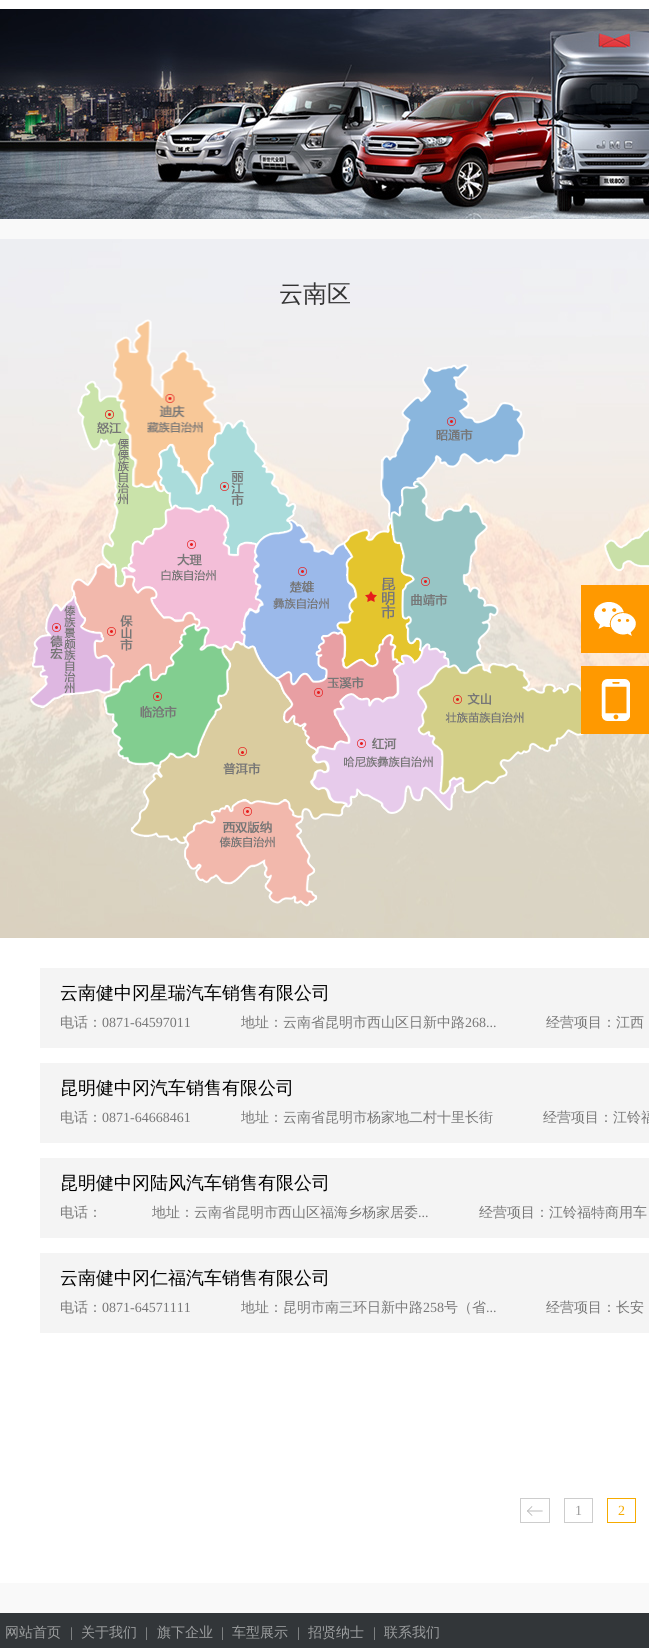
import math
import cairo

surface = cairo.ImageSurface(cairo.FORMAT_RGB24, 649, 1648)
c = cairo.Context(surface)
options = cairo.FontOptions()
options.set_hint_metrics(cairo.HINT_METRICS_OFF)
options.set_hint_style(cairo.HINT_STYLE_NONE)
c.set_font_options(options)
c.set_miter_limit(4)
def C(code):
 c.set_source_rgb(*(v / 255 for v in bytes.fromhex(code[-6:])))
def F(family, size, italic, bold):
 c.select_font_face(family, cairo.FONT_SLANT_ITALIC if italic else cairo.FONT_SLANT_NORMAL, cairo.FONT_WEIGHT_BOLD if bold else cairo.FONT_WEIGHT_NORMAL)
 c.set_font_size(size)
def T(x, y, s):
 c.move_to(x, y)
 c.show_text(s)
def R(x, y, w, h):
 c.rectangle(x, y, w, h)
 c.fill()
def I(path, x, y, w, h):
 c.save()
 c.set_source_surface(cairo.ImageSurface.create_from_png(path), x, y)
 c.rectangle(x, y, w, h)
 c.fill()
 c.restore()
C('f9f9f9')
c.paint()
C('ffffff')
R(0,0,649,9)
I('1.png',0,9,649,210)
I('2.png',0,239,649,699)
F('WenQuanYi Zen Hei Medium',24,0,0)
C('333333')
T(279,302,'云南区')
I('5.png',77,380,94,206)
I('3.png',113,319,110,174)
I('4.png',380,364,145,157)
I('6.png',157,419,140,135)
I('8.png',121,504,141,145)
I('9.png',240,519,115,164)
I('11.png',71,563,130,128)
I('15.png',130,641,216,203)
I('10.png',336,521,85,146)
I('14.png',275,631,126,121)
I('7.png',390,480,109,192)
I('12.png',30,596,85,113)
I('13.png',103,623,129,144)
I('16.png',312,643,151,171)
I('17.png',417,662,167,133)
I('18.png',184,798,134,109)
I('19.png',604,527,45,45)
I('20.png',581,585,68,68)
I('21.png',581,666,68,68)
C('ffffff')
R(0,938,649,645)
C('f4f4f4')
R(40,968,609,80)
F('WenQuanYi Zen Hei Medium',18,0,0)
C('000000')
T(60,999,'云南健中冈星瑞汽车销售有限公司')
F('WenQuanYi Zen Hei Medium',14,0,0)
C('777777')
T(60,1027,'电话：')
F('Liberation Serif',14,0,0)
T(102,1027,'0871-64597011')
F('WenQuanYi Zen Hei Medium',14,0,0)
T(241,1027,'地址：云南省昆明市西山区日新中路')
F('Liberation Serif',14,0,0)
T(465,1027,'268...')
F('WenQuanYi Zen Hei Medium',14,0,0)
T(546,1027,'经营项目：江西')
C('f4f4f4')
R(40,1063,609,80)
F('WenQuanYi Zen Hei Medium',18,0,0)
C('000000')
T(60,1094,'昆明健中冈汽车销售有限公司')
F('WenQuanYi Zen Hei Medium',14,0,0)
C('777777')
T(60,1122,'电话：')
F('Liberation Serif',14,0,0)
T(102,1122,'0871-64668461')
F('WenQuanYi Zen Hei Medium',14,0,0)
T(241,1122,'地址：云南省昆明市杨家地二村十里长街')
T(543,1122,'经营项目：江铃福')
C('f4f4f4')
R(40,1158,609,80)
F('WenQuanYi Zen Hei Medium',18,0,0)
C('000000')
T(60,1189,'昆明健中冈陆风汽车销售有限公司')
F('WenQuanYi Zen Hei Medium',14,0,0)
C('777777')
T(60,1217,'电话：')
T(152,1217,'地址：云南省昆明市西山区福海乡杨家居委')
F('Liberation Serif',14,0,0)
T(418,1217,'...')
F('WenQuanYi Zen Hei Medium',14,0,0)
T(479,1217,'经营项目：江铃福特商用车')
C('f4f4f4')
R(40,1253,609,80)
F('WenQuanYi Zen Hei Medium',18,0,0)
C('000000')
T(60,1284,'云南健中冈仁福汽车销售有限公司')
F('WenQuanYi Zen Hei Medium',14,0,0)
C('777777')
T(60,1312,'电话：')
F('Liberation Serif',14,0,0)
T(102,1312,'0871-64571111')
F('WenQuanYi Zen Hei Medium',14,0,0)
T(241,1312,'地址：昆明市南三环日新中路')
F('Liberation Serif',14,0,0)
T(423,1312,'258')
F('WenQuanYi Zen Hei Medium',14,0,0)
T(444,1312,'号（省')
F('Liberation Serif',14,0,0)
T(486,1312,'...')
F('WenQuanYi Zen Hei Medium',14,0,0)
T(546,1312,'经营项目：长安')
I('22.png',520,1498,30,25)
c.rectangle(564.5,1498.5,28,24)
C('cdcdcd')
c.set_line_width(1)
c.stroke()
F('Liberation Serif',14,0,0)
C('999999')
T(575,1515,'1')
c.rectangle(607.5,1498.5,28,24)
C('f6ab00')
c.stroke()
T(618,1515,'2')
C('323639')
R(0,1613,649,35)
F('WenQuanYi Zen Hei Medium',14,0,0)
C('9c9e9f')
T(5,1637,'网站首页')
F('Liberation Serif',14,0,0)
T(70,1637,'|')
F('WenQuanYi Zen Hei Medium',14,0,0)
T(81,1637,'关于我们')
F('Liberation Serif',14,0,0)
T(145,1637,'|')
F('WenQuanYi Zen Hei Medium',14,0,0)
T(157,1637,'旗下企业')
F('Liberation Serif',14,0,0)
T(221,1637,'|')
F('WenQuanYi Zen Hei Medium',14,0,0)
T(232,1637,'车型展示')
F('Liberation Serif',14,0,0)
T(297,1637,'|')
F('WenQuanYi Zen Hei Medium',14,0,0)
T(308,1637,'招贤纳士')
F('Liberation Serif',14,0,0)
T(373,1637,'|')
F('WenQuanYi Zen Hei Medium',14,0,0)
T(384,1637,'联系我们')
surface.write_to_png('o.png')
